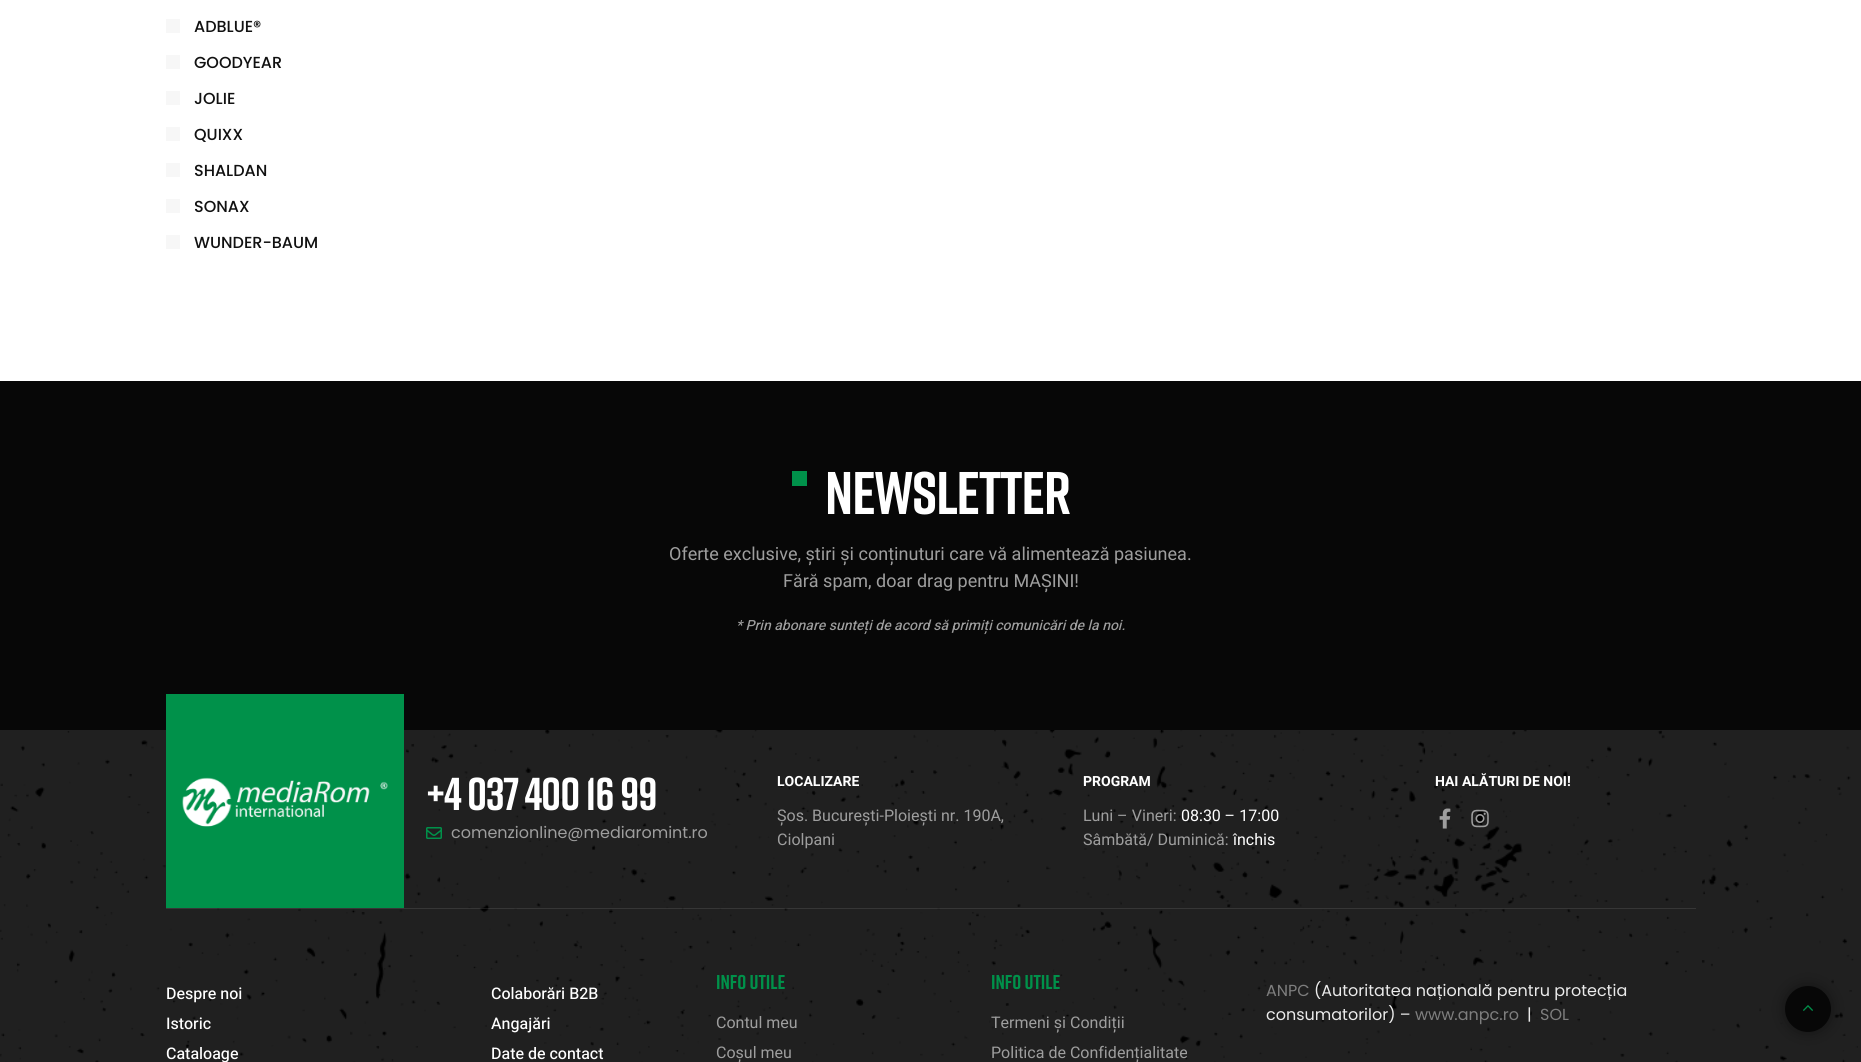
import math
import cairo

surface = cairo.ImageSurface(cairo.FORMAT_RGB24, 1861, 1062)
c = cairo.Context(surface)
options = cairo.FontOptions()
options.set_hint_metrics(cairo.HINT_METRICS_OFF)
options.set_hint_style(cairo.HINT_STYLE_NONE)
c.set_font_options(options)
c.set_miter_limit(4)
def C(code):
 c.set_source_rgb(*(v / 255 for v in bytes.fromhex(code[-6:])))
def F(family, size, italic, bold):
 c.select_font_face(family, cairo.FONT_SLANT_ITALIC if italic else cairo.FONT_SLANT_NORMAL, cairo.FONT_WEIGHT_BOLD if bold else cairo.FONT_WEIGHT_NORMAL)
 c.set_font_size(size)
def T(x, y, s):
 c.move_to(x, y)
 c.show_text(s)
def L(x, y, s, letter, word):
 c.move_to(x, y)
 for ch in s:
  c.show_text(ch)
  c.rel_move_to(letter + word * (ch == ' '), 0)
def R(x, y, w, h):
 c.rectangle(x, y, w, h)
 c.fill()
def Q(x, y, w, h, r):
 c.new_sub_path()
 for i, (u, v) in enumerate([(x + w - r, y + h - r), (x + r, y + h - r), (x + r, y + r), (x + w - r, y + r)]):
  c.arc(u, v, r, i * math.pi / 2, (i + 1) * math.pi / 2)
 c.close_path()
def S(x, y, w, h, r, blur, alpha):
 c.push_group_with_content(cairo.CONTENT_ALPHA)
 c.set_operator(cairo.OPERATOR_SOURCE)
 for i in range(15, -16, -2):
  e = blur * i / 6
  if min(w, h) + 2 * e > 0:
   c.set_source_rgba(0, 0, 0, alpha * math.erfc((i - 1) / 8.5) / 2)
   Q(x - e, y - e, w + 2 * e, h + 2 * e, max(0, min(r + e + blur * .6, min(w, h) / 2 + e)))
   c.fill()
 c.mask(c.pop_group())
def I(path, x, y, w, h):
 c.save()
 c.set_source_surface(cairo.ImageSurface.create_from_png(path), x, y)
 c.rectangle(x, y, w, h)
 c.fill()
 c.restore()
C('ffffff')
c.paint()
C('f7f7f7')
R(166,19,14,14)
F('Poppins Medium',16,0,0)
C('111111')
T(194,32,'ADBLUE®')
C('f7f7f7')
R(166,55,14,14)
C('111111')
T(194,68,'GOODYEAR')
C('f7f7f7')
R(166,91,14,14)
C('111111')
T(194,104,'JOLIE')
C('f7f7f7')
R(166,127,14,14)
C('111111')
T(194,140,'QUIXX')
C('f7f7f7')
R(166,163,14,14)
C('111111')
T(194,176,'SHALDAN')
C('f7f7f7')
R(166,199,14,14)
C('111111')
T(194,212,'SONAX')
C('f7f7f7')
R(166,235,14,14)
C('111111')
T(194,248,'WUNDER-BAUM')
C('070707')
R(0,381,1861,349)
C('00914a')
R(792,471,15,15)
F('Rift',60,0,1)
C('ffffff')
L(825,514,'NEWSLETTER',-1,0)
F('Heebo',18,0,0)
C('9e9e9e')
T(669,560,'Oferte exclusive, știri și conținuturi care vă alimentează pasiunea.')
T(783,587,'Fără spam, doar drag pentru MAȘINI!')
F('Heebo Medium',14,1,0)
T(736,630,'* Prin abonare sunteți de acord să primiți comunicări de la noi.')
C('202020')
R(0,730,1861,332)
I('1.png',0,730,1858,332)
C('00914a')
R(166,694,238,214)
I('2.png',182,777,206,50)
F('Rift',46,0,1)
C('ffffff')
L(426,810,'+4 037 400 16 99',-1,0)
I('3.png',426,827,16,12)
F('Poppins',16,0,0)
C('9e9e9e')
T(451,838,'comenzionline@mediaromint.ro')
F('Heebo',14,0,1)
C('ffffff')
T(777,786,'LOCALIZARE')
F('Heebo',16,0,0)
C('9e9e9e')
T(777,821,'Șos. București-Ploiești nr. 190A,')
T(777,845,'Ciolpani')
F('Heebo',14,0,1)
C('ffffff')
T(1083,786,'PROGRAM')
F('Heebo',16,0,0)
C('9e9e9e')
T(1083,821,'Luni – Vineri:')
C('ffffff')
T(1181,821,'08:30 – 17:00')
C('9e9e9e')
T(1083,845,'Sâmbătă/ Duminică:')
C('ffffff')
T(1233,845,'închis')
F('Heebo',14,0,1)
T(1435,786,'HAI ALĂTURI DE NOI!')
I('4.png',1439,808,12,21)
I('5.png',1471,809,18,19)
c.set_source_rgba(1,1,1,0.1)
R(166,908,1530,1)
F('Heebo Medium',16,0,0)
C('ffffff')
T(166,999,'Despre noi')
T(166,1029,'Istoric')
T(166,1059,'Cataloage')
T(491,999,'Colaborări B2B')
T(491,1029,'Angajări')
T(491,1059,'Date de contact')
F('Rift',20,0,1)
C('00914a')
T(716,989,'INFO UTILE')
F('Heebo',16,0,0)
C('9e9e9e')
T(716,1028,'Contul meu')
T(716,1058,'Coșul meu')
F('Rift',20,0,1)
C('00914a')
T(991,989,'INFO UTILE')
F('Heebo',16,0,0)
C('9e9e9e')
T(991,1028,'Termeni și Condiții')
T(991,1058,'Politica de Confidențialitate')
F('Poppins',16,0,0)
C('7e7e7e')
T(1266,996,'ANPC')
C('ebebeb')
T(1314,996,'(Autoritatea națională pentru protecția')
T(1266,1020,'consumatorilor) –')
C('7e7e7e')
T(1415,1020,'www.anpc.ro')
C('ebebeb')
T(1527,1020,'|')
C('7e7e7e')
T(1540,1020,'SOL')
C('000000')
S(1785,986,46,46,23,7.5,.4)
C('070707')
c.arc(1808,1009,23,0,2 * math.pi)
c.fill()
I('6.png',1803,1005,10,6)
surface.write_to_png('o.png')
